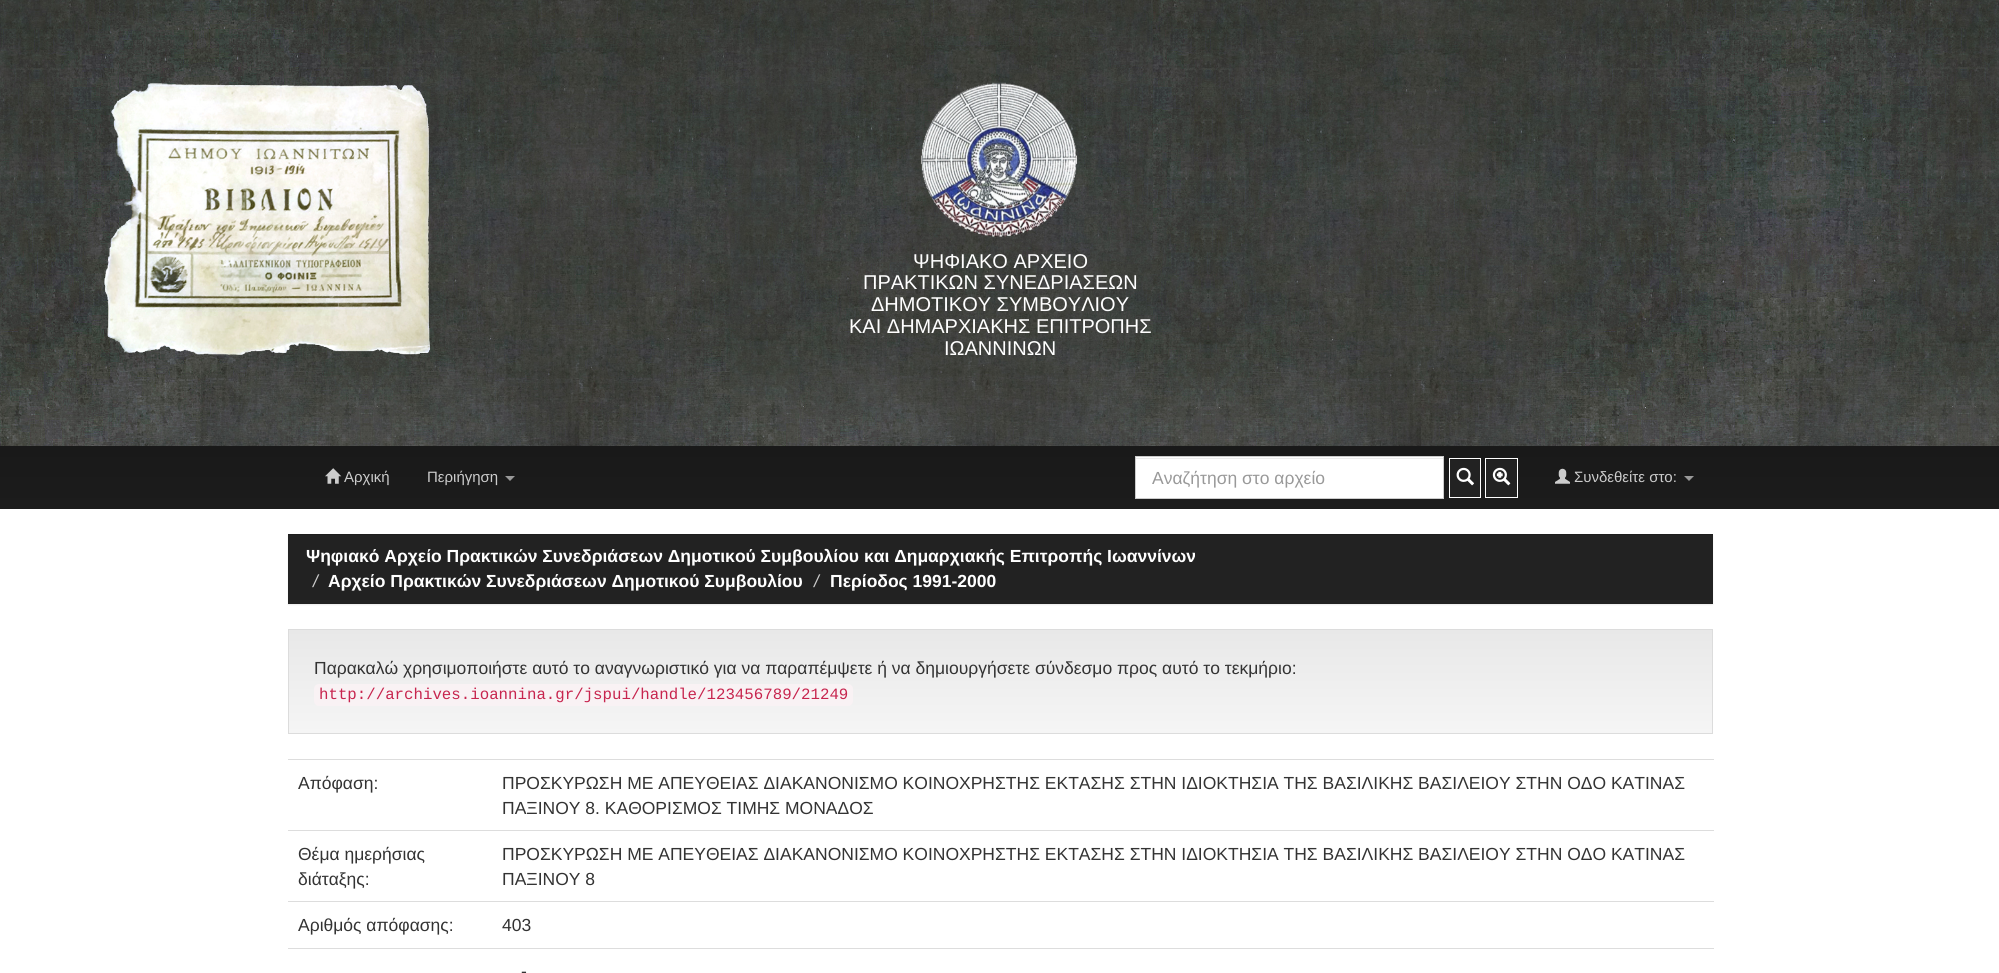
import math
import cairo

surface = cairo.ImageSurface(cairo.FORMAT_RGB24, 1999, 973)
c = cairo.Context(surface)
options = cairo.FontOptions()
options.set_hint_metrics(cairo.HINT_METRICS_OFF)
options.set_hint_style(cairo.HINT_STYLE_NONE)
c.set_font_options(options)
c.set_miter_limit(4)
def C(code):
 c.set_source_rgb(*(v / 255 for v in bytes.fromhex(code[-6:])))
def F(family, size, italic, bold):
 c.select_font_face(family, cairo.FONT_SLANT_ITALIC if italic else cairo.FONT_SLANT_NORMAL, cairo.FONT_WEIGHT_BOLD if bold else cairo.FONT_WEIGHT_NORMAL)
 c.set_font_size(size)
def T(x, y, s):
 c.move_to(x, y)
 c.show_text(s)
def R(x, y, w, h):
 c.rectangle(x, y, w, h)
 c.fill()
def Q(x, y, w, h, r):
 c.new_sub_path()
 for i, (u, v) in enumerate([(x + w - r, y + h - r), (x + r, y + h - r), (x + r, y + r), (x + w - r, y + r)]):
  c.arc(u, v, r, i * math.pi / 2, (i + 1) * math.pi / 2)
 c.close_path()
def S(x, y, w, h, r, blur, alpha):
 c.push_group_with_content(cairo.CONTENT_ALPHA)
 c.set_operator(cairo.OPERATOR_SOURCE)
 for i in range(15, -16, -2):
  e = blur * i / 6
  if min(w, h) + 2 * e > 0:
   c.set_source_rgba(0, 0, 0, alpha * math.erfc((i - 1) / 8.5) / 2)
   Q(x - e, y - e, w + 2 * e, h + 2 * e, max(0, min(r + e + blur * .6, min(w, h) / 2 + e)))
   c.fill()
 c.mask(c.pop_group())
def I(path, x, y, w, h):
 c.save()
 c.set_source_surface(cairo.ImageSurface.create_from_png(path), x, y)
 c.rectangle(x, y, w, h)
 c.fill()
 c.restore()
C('ffffff')
c.paint()
I('1.png',0,0,1999,446)
I('2.png',104,83,326,272)
I('3.png',921,82,157,155)
F('Liberation Sans',20,0,0)
C('ffffff')
T(913,268,'ΨΗΦΙΑΚΟ ΑΡΧΕΙΟ')
T(863,289,'ΠΡΑΚΤΙΚΩΝ ΣΥΝΕΔΡΙΑΣΕΩΝ')
T(871,311,'ΔΗΜΟΤΙΚΟΥ ΣΥΜΒΟΥΛΙΟΥ')
T(849,333,'ΚΑΙ ΔΗΜΑΡΧΙΑΚΗΣ ΕΠΙΤΡΟΠΗΣ')
T(944,355,'ΙΩΑΝΝΙΝΩΝ')
gradient = cairo.LinearGradient(0,446,0,509)
gradient.add_color_stop_rgba(0,0.098,0.098,0.098,1)
gradient.add_color_stop_rgba(1,0.11,0.11,0.11,1)
c.set_source(gradient)
R(0,446,1999,63)
I('4.png',325,468,17,16)
F('Liberation Sans',15,0,0)
C('cccccc')
T(344,482,'Αρχική')
T(427,482,'Περιήγηση')
C('999999')
c.new_path()
c.move_to(505,476)
c.line_to(515,476)
c.line_to(510,481)
c.close_path()
c.fill()
C('ffffff')
R(1136,457,307,41)
C('ececec')
R(1136,458,307,1)
c.rectangle(1135.5,456.5,308,42)
C('cccccc')
c.set_line_width(1)
c.stroke()
F('Liberation Sans',17.5,0,0)
C('999999')
T(1152,484,'Αναζήτηση στο αρχείο')
C('222222')
R(1450,460,30,37)
C('1d1d1d')
R(1450,459,30,1)
c.rectangle(1449.5,458.5,31,39)
C('ffffff')
c.stroke()
I('5.png',1456,467,18,19)
C('222222')
R(1486,459,31,38)
C('1d1d1d')
R(1486,459,30,1)
c.rectangle(1485.5,458.5,32,39)
C('ffffff')
c.stroke()
I('6.png',1492,467,19,19)
I('7.png',1555,468,15,16)
F('Liberation Sans',15,0,0)
C('cccccc')
T(1574,482,'Συνδεθείτε στο:')
C('999999')
c.new_path()
c.move_to(1684,476)
c.line_to(1694,476)
c.line_to(1689,481)
c.close_path()
c.fill()
C('000000')
S(288,535,1425,70,0,.5,.07)
C('222222')
R(288,535,1425,69)
C('1d1d1d')
R(288,534,1425,1)
F('Liberation Sans',17.5,0,1)
C('ffffff')
T(306,562,'Ψηφιακό Αρχείο Πρακτικών Συνεδριάσεων Δημοτικού Συμβουλίου και Δημαρχιακής Επιτροπής Ιωαννίνων')
F('Liberation Sans',17.5,1,0)
C('cccccc')
T(313,587,'/')
F('Liberation Sans',17.5,0,1)
C('ffffff')
T(328,587,'Aρχείο Πρακτικών Συνεδριάσεων Δημοτικού Συμβουλίου')
F('Liberation Sans',17.5,1,0)
C('cccccc')
T(814,587,'/')
F('Liberation Sans',17.5,0,1)
C('ffffff')
T(830,587,'Περίοδος 1991-2000')
gradient = cairo.LinearGradient(1000,630,1000,733)
gradient.add_color_stop_rgba(0,0.91,0.91,0.91,1)
gradient.add_color_stop_rgba(1,0.961,0.961,0.961,1)
c.set_source(gradient)
R(289,630,1423,103)
c.rectangle(288.5,629.5,1424,104)
C('dcdcdc')
c.stroke()
F('Liberation Sans',17.5,0,0)
C('333333')
T(314,674,'Παρακαλώ χρησιμοποιήστε αυτό το αναγνωριστικό για να παραπέμψετε ή να δημιουργήσετε σύνδεσμο προς αυτό το τεκμήριο:')
C('f9f2f4')
Q(314,684,539,22,5)
c.fill()
F('Liberation Mono',15.75,0,0)
C('c7254e')
T(319,699,'http://archives.ioannina.gr/jspui/handle/123456789/21249')
F('Liberation Sans',17.5,0,0)
C('333333')
T(298,789,'Απόφαση:')
C('dddddd')
R(288,759,1426,1)
C('333333')
T(502,789,'ΠΡΟΣΚΥΡΩΣΗ ΜΕ ΑΠΕΥΘΕΙΑΣ ΔΙΑΚΑΝΟΝΙΣΜΟ ΚΟΙΝΟΧΡΗΣΤΗΣ ΕΚΤΑΣΗΣ ΣΤΗΝ ΙΔΙΟΚΤΗΣΙΑ ΤΗΣ ΒΑΣΙΛΙΚΗΣ ΒΑΣΙΛΕΙΟΥ ΣΤΗΝ ΟΔΟ ΚΑΤΙΝΑΣ')
T(502,814,'ΠΑΞΙΝΟΥ 8. ΚΑΘΟΡΙΣΜΟΣ ΤΙΜΗΣ ΜΟΝΑΔΟΣ')
T(298,860,'Θέμα ημερήσιας')
T(298,885,'διάταξης:')
C('dddddd')
R(288,830,1426,1)
C('333333')
T(502,860,'ΠΡΟΣΚΥΡΩΣΗ ΜΕ ΑΠΕΥΘΕΙΑΣ ΔΙΑΚΑΝΟΝΙΣΜΟ ΚΟΙΝΟΧΡΗΣΤΗΣ ΕΚΤΑΣΗΣ ΣΤΗΝ ΙΔΙΟΚΤΗΣΙΑ ΤΗΣ ΒΑΣΙΛΙΚΗΣ ΒΑΣΙΛΕΙΟΥ ΣΤΗΝ ΟΔΟ ΚΑΤΙΝΑΣ')
T(502,885,'ΠΑΞΙΝΟΥ 8')
T(298,931,'Αριθμός απόφασης:')
C('dddddd')
R(288,901,1426,1)
C('333333')
T(502,931,'403')
C('dddddd')
R(288,948,1426,1)
C('333333')
T(521,977,'-')
surface.write_to_png('o.png')
